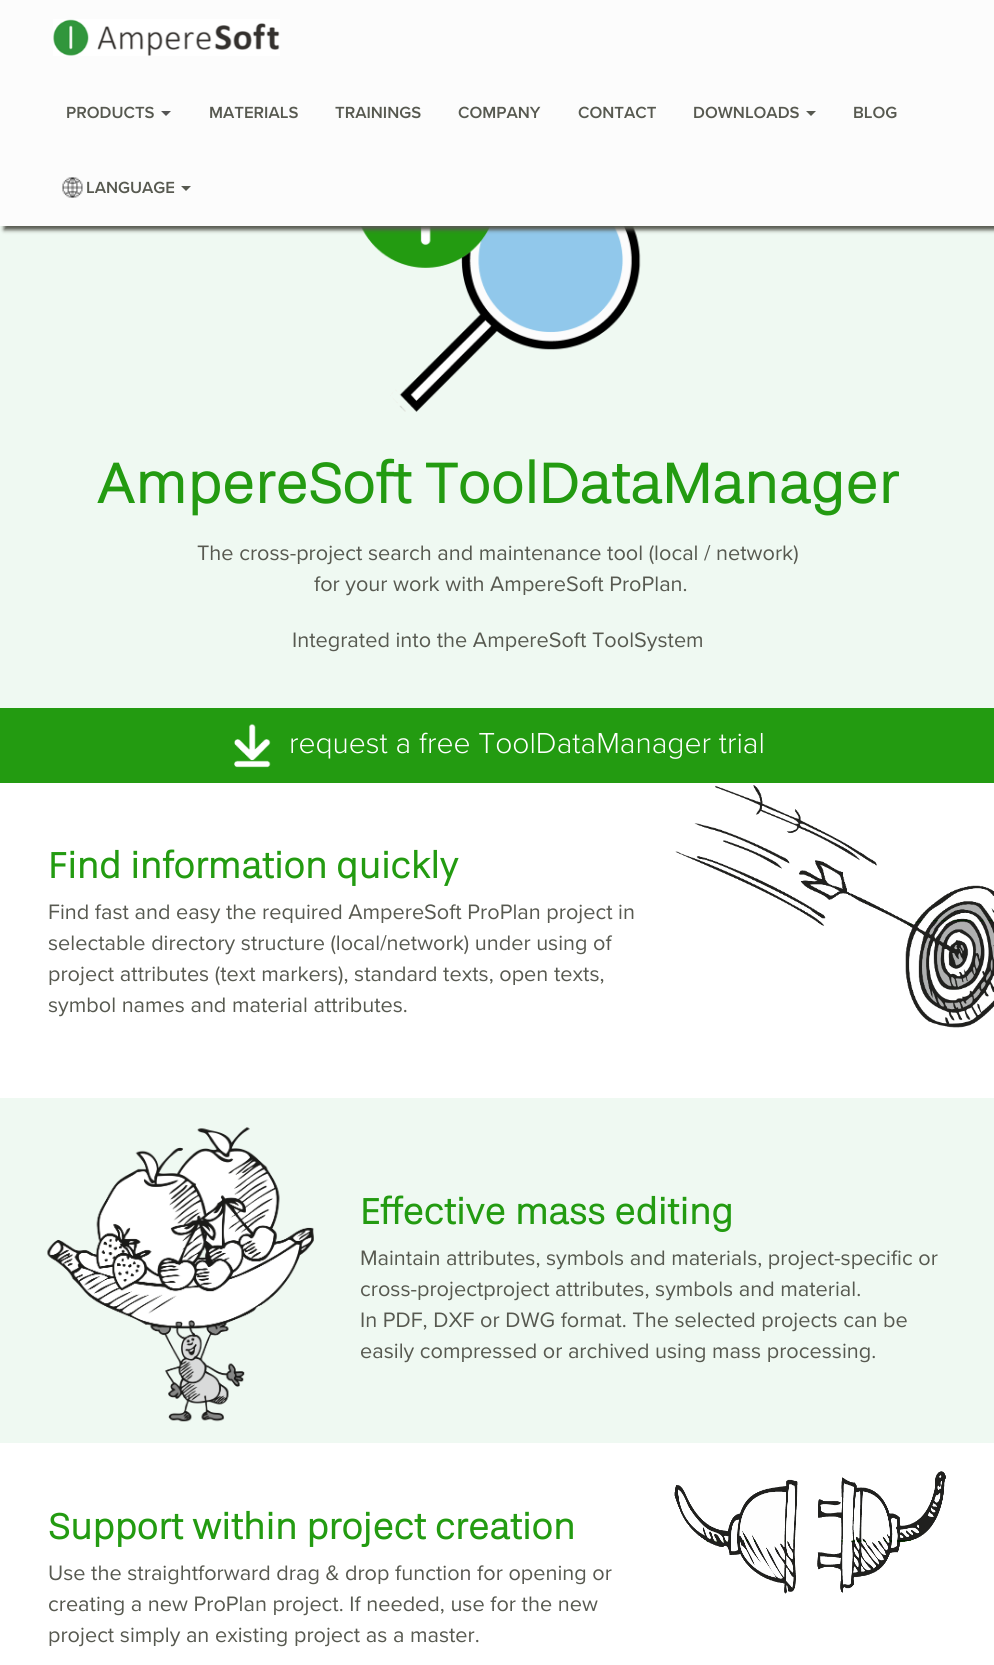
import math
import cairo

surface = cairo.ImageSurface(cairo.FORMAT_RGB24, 994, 1665)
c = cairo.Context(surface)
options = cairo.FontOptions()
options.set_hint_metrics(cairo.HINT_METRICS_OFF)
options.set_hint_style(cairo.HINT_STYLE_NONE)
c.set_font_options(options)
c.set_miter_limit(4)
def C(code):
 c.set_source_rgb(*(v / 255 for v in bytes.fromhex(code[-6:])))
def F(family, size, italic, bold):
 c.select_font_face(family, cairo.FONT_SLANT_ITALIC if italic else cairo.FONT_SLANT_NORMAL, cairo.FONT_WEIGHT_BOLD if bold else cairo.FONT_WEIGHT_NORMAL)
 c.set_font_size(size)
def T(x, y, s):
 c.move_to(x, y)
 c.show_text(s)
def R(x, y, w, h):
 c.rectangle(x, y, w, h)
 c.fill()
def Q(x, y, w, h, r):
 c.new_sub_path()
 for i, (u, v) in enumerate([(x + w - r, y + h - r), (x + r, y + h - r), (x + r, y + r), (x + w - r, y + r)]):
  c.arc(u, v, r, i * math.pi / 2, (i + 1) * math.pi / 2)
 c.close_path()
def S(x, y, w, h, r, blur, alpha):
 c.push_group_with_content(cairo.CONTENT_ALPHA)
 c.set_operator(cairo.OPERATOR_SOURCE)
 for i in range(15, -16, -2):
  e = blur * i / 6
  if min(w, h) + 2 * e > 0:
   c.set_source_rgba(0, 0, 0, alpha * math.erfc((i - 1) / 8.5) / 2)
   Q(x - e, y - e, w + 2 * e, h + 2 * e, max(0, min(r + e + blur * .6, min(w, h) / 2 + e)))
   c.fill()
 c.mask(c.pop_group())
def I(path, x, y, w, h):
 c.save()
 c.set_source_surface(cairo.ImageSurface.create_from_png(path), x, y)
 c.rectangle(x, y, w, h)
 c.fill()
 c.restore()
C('ffffff')
c.paint()
C('eff9f2')
R(0,226,994,482)
I('3.png',360,226,281,186)
C('575950')
S(4,4,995,226,0,2,1)
C('fcfcfc')
R(0,0,994,226)
I('1.png',53,19,227,37)
F('Proxima Nova SemiBold',16.75,0,0)
C('575950')
T(66,118,'PRODUCTS')
C('555555')
c.new_path()
c.move_to(161,111)
c.line_to(171,111)
c.line_to(166,116)
c.close_path()
c.fill()
C('575950')
T(209,118,'MATERIALS')
T(335,118,'TRAININGS')
T(458,118,'COMPANY')
T(578,118,'CONTACT')
T(693,118,'DOWNLOADS')
c.new_path()
c.move_to(806,111)
c.line_to(816,111)
c.line_to(811,116)
c.close_path()
c.fill()
T(853,118,'BLOG')
I('2.png',62,177,21,21)
T(86,193,'LANGUAGE')
c.new_path()
c.move_to(181,186)
c.line_to(191,186)
c.line_to(186,191)
c.close_path()
c.fill()
F('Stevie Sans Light',58.3,0,1)
C('239b11')
T(96,503,'AmpereSoft ToolDataManager')
F('Proxima Nova',21.7,0,0)
C('575950')
T(197,560,'The cross-project search and maintenance tool (local / network)')
T(314,591,'for your work with AmpereSoft ProPlan.')
T(292,647,'Integrated into the AmpereSoft ToolSystem')
C('239b11')
R(0,708,994,75)
I('4.png',234,723,37,45)
F('Proxima Nova Light',30,0,0)
C('ffffff')
T(289,753,'request a free ToolDataManager trial')
F('Stevie Sans Light',37.5,0,1)
C('239b11')
T(48,878,'Find information quickly')
F('Proxima Nova',21.7,0,0)
C('575950')
T(48,919,'Find fast and easy the required AmpereSoft ProPlan project in')
T(48,950,'selectable directory structure (local/network) under using of')
T(48,981,'project attributes (text markers), standard texts, open texts,')
T(48,1012,'symbol names and material attributes.')
I('5.png',675,785,319,243)
C('eff9f2')
R(0,1098,994,345)
I('6.png',47,1127,267,295)
F('Stevie Sans Light',37.5,0,1)
C('239b11')
T(360,1224,'Effective mass editing')
F('Proxima Nova',21.7,0,0)
C('575950')
T(360,1265,'Maintain attributes, symbols and materials, project-specific or')
T(360,1296,'cross-projectproject attributes, symbols and material.')
T(360,1327,'In PDF, DXF or DWG format. The selected projects can be')
T(360,1358,'easily compressed or archived using mass processing.')
F('Stevie Sans Light',37.5,0,1)
C('239b11')
T(48,1539,'Support within project creation')
F('Proxima Nova',21.7,0,0)
C('575950')
T(48,1580,'Use the straightforward drag & drop function for opening or')
T(48,1611,'creating a new ProPlan project. If needed, use for the new')
T(48,1642,'project simply an existing project as a master.')
I('7.png',674,1471,272,123)
surface.write_to_png('o.png')
